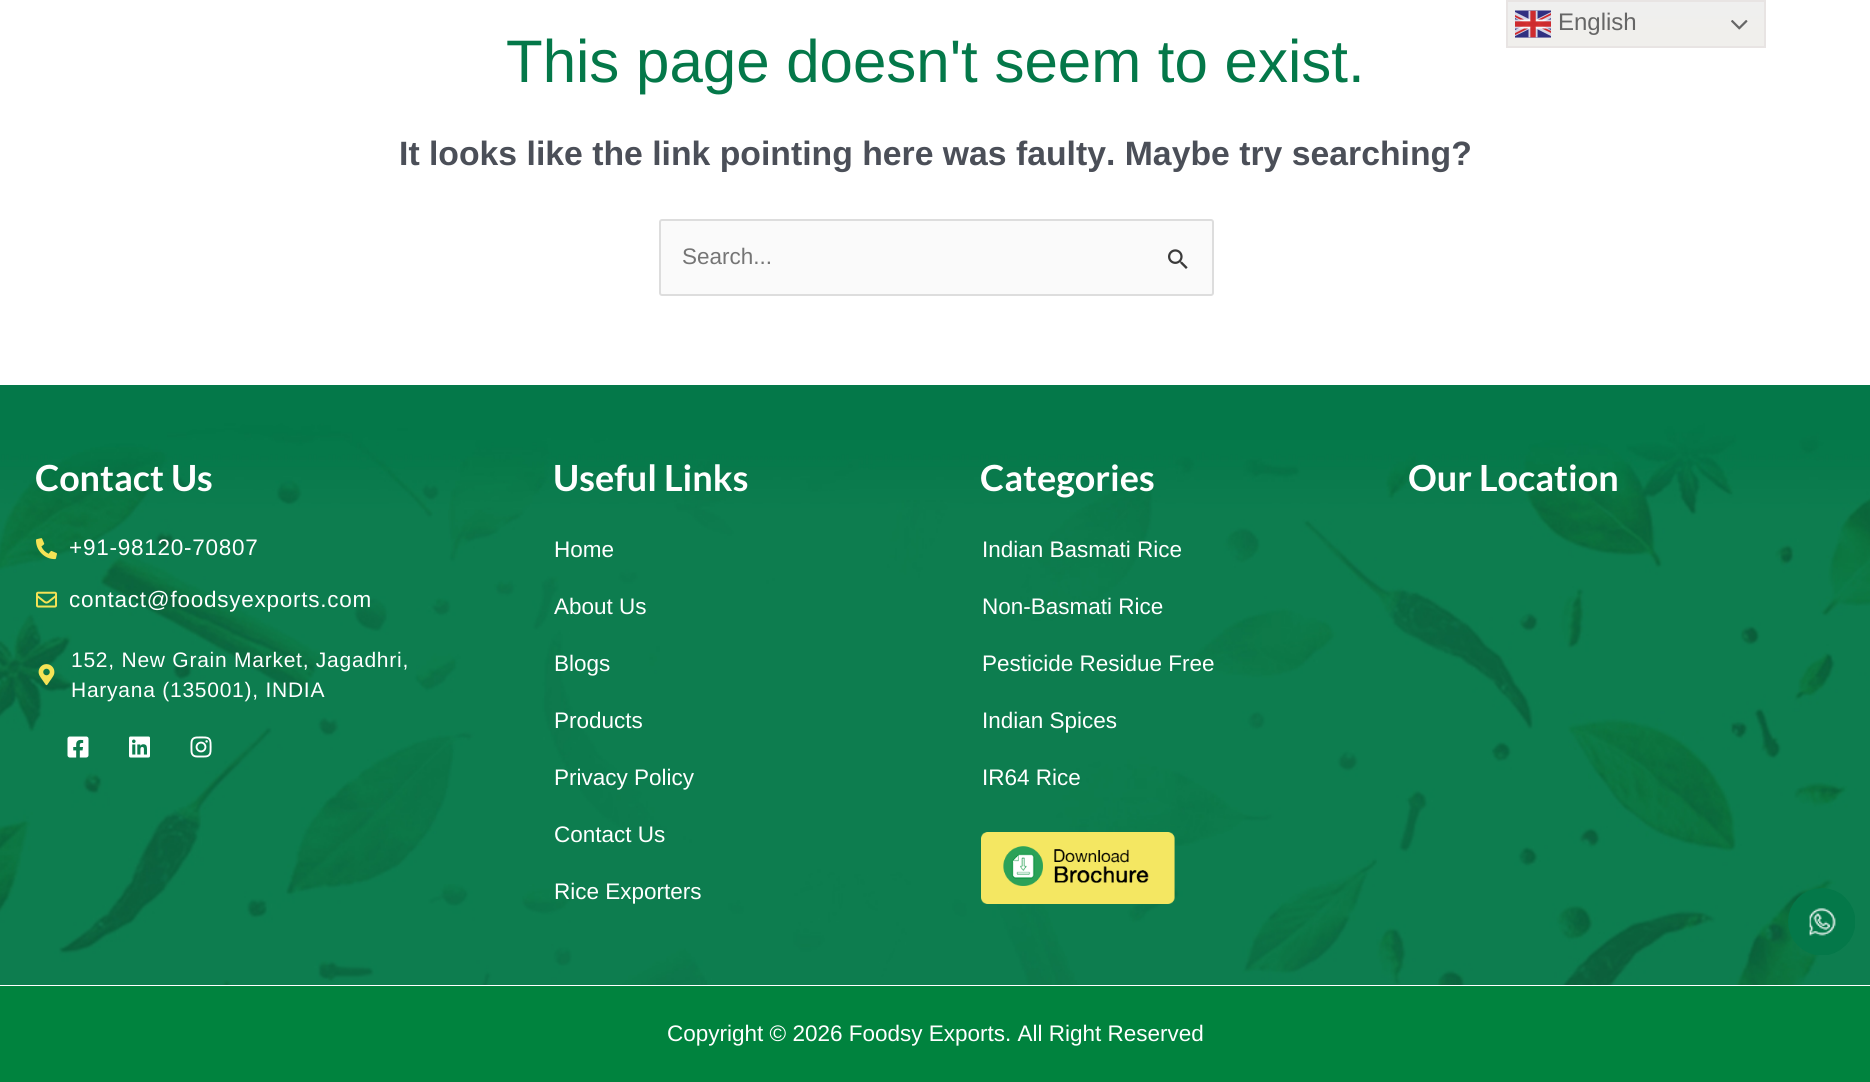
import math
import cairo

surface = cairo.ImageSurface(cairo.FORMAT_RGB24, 1870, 1082)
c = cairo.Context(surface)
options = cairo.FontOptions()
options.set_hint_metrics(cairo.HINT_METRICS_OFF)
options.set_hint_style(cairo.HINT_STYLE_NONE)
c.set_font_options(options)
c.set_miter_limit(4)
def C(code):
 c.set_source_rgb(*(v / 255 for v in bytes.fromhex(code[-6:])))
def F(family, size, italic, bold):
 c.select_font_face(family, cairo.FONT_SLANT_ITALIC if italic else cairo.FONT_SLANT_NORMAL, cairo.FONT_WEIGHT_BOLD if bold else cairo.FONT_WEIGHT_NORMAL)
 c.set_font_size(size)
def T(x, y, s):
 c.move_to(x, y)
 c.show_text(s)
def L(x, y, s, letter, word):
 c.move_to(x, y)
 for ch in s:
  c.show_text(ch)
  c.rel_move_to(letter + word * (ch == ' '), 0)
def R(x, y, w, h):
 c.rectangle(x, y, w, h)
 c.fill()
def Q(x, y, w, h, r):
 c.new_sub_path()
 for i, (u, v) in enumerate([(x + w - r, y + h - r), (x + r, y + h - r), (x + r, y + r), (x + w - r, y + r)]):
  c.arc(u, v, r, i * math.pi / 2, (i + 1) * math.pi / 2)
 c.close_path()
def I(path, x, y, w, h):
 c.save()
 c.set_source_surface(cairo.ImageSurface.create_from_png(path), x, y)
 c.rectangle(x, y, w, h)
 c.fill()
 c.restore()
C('ffffff')
c.paint()
gradient = cairo.LinearGradient(1636,0,1636,48)
gradient.add_color_stop_rgba(0,0.937,0.937,0.937,1)
gradient.add_color_stop_rgba(.7,0.941,0.937,0.925,1)
c.set_source(gradient)
R(1508,2,256,44)
c.rectangle(1507,1,258,46)
C('e8e4e3')
c.stroke()
I('1.png',1515,10,36,28)
F('Liberation Sans',24,0,0)
C('666666')
T(1558,30,'English')
I('2.png',1731,20,17,10)
F('Liberation Sans',60,0,0)
C('047849')
T(506,82,'This page doesn\'t seem to exist.')
F('Liberation Sans',33.75,0,1)
C('4b4f58')
T(399,165,'It looks like the link pointing here was faulty. Maybe try searching?')
C('fafafa')
Q(660,220,553,75,2)
c.fill_preserve()
C('dddddd')
c.stroke()
F('Liberation Sans',22.5,0,0)
C('757575')
T(682,264,'Search...')
I('3.png',1168,249,20,20)
I('4.png',0,385,1870,600)
F('Lato',36,0,1)
C('ffffff')
T(35,491,'Contact Us')
I('5.png',36,538,21,22)
F('Liberation Sans',22.5,0,0)
L(69,555,'+91-98120-70807',.75,0)
I('6.png',36,591,21,17)
L(69,607,'contact@foodsyexports.com',.75,0)
I('7.png',38,664,17,22)
F('Liberation Sans',21,0,0)
L(71,667,'152, New Grain Market, Jagadhri,',.75,0)
L(71,697,'Haryana (135001), INDIA',.75,0)
I('8.png',67,736,22,22)
I('9.png',129,736,21,22)
I('10.png',190,736,22,22)
I('11.png',1788,888,67,67)
F('Lato',36,0,1)
T(553,491,'Useful Links')
F('Liberation Sans',22.5,0,0)
T(554,557,'Home')
T(554,614,'About Us')
T(554,671,'Blogs')
T(554,728,'Products')
T(554,785,'Privacy Policy')
T(554,842,'Contact Us')
T(554,899,'Rice Exporters')
F('Lato',36,0,1)
T(980,491,'Categories')
F('Liberation Sans',22.5,0,0)
T(982,557,'Indian Basmati Rice')
T(982,614,'Non-Basmati Rice')
T(982,671,'Pesticide Residue Free')
T(982,728,'Indian Spices')
T(982,785,'IR64 Rice')
I('12.png',981,832,194,72)
F('Lato',36,0,1)
T(1408,491,'Our Location')
C('00833e')
R(0,986,1870,96)
F('Liberation Sans',22.5,0,0)
C('ffffff')
T(667,1041,'Copyright © 2026 Foodsy Exports. All Right Reserved')
surface.write_to_png('o.png')
